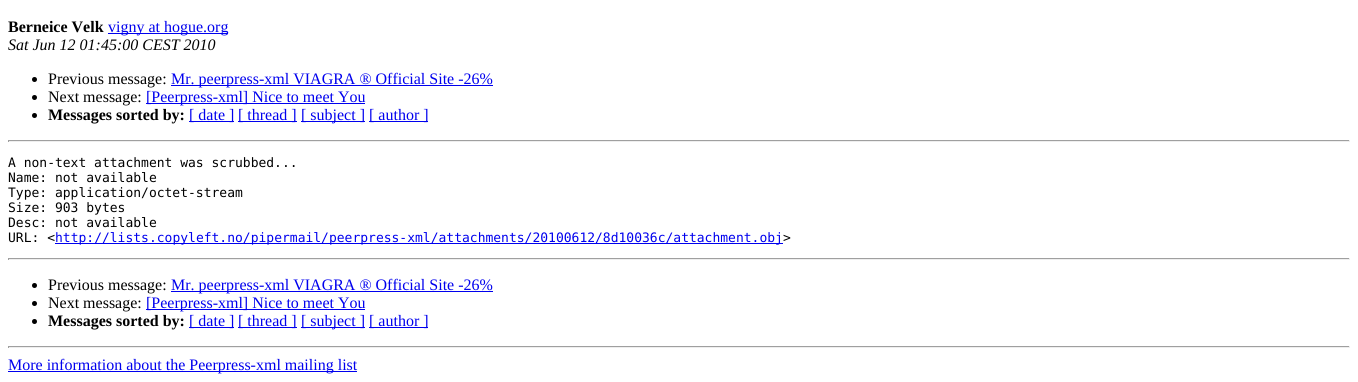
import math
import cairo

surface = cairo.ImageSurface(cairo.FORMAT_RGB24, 1358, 382)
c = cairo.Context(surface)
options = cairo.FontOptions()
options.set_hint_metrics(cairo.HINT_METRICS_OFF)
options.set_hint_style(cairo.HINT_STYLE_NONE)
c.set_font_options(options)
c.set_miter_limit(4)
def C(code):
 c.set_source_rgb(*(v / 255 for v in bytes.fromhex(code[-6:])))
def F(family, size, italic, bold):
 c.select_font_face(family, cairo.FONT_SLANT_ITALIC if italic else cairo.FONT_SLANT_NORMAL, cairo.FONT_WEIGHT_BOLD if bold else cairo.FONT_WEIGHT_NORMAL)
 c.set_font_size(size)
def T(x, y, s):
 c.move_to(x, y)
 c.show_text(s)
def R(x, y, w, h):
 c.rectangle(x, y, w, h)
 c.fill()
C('ffffff')
c.paint()
F('Liberation Serif',16,0,1)
C('000000')
T(8,32,'Berneice Velk')
C('0000ee')
R(108,33,120,1)
F('Liberation Serif',16,0,0)
T(108,32,'vigny at hogue.org')
F('Liberation Serif',16,1,0)
C('000000')
T(8,50,'Sat Jun 12 01:45:00 CEST 2010')
c.new_path()
c.arc(34.5,79.5,2.5,0,2 * math.pi)
c.fill()
F('Liberation Serif',16,0,0)
T(48,84,'Previous message:')
C('0000ee')
R(171,85,322,1)
T(171,84,'Mr. peerpress-xml VIAGRA ® Official Site -26%')
C('000000')
c.new_path()
c.arc(34.5,97.5,2.5,0,2 * math.pi)
c.fill()
T(48,102,'Next message:')
C('0000ee')
R(146,103,219,1)
T(146,102,'[Peerpress-xml] Nice to meet You')
C('000000')
c.new_path()
c.arc(34.5,115.5,2.5,0,2 * math.pi)
c.fill()
F('Liberation Serif',16,0,1)
T(48,120,'Messages sorted by:')
C('0000ee')
R(189,121,45,1)
F('Liberation Serif',16,0,0)
T(189,120,'[ date ]')
R(238,121,59,1)
T(238,120,'[ thread ]')
R(301,121,64,1)
T(301,120,'[ subject ]')
R(369,121,59,1)
T(369,120,'[ author ]')
C('9f9f9f')
R(8,140,1342,1)
C('eeeeee')
R(1349,140,1,2)
R(8,141,1342,1)
C('9f9f9f')
R(8,140,1,2)
F('DejaVu Sans Mono',13,0,0)
C('000000')
T(8,167,'A non-text attachment was scrubbed...')
T(8,182,'Name: not available')
T(8,197,'Type: application/octet-stream')
T(8,212,'Size: 903 bytes')
T(8,227,'Desc: not available')
T(8,242,'URL: <')
C('0000ee')
R(55,243,728,1)
T(55,242,'http://lists.copyleft.no/pipermail/peerpress-xml/attachments/20100612/8d10036c/attachment.obj')
C('000000')
T(783,242,'>')
C('9f9f9f')
R(8,258,1342,1)
C('eeeeee')
R(1349,258,1,2)
R(8,259,1342,1)
C('9f9f9f')
R(8,258,1,2)
C('000000')
c.new_path()
c.arc(34.5,285.5,2.5,0,2 * math.pi)
c.fill()
F('Liberation Serif',16,0,0)
T(48,290,'Previous message:')
C('0000ee')
R(171,291,322,1)
T(171,290,'Mr. peerpress-xml VIAGRA ® Official Site -26%')
C('000000')
c.new_path()
c.arc(34.5,303.5,2.5,0,2 * math.pi)
c.fill()
T(48,308,'Next message:')
C('0000ee')
R(146,309,219,1)
T(146,308,'[Peerpress-xml] Nice to meet You')
C('000000')
c.new_path()
c.arc(34.5,321.5,2.5,0,2 * math.pi)
c.fill()
F('Liberation Serif',16,0,1)
T(48,326,'Messages sorted by:')
C('0000ee')
R(189,327,45,1)
F('Liberation Serif',16,0,0)
T(189,326,'[ date ]')
R(238,327,59,1)
T(238,326,'[ thread ]')
R(301,327,64,1)
T(301,326,'[ subject ]')
R(369,327,59,1)
T(369,326,'[ author ]')
C('9f9f9f')
R(8,346,1342,1)
C('eeeeee')
R(1349,346,1,2)
R(8,347,1342,1)
C('9f9f9f')
R(8,346,1,2)
C('0000ee')
R(8,371,349,1)
T(8,370,'More information about the Peerpress-xml mailing list')
surface.write_to_png('o.png')
